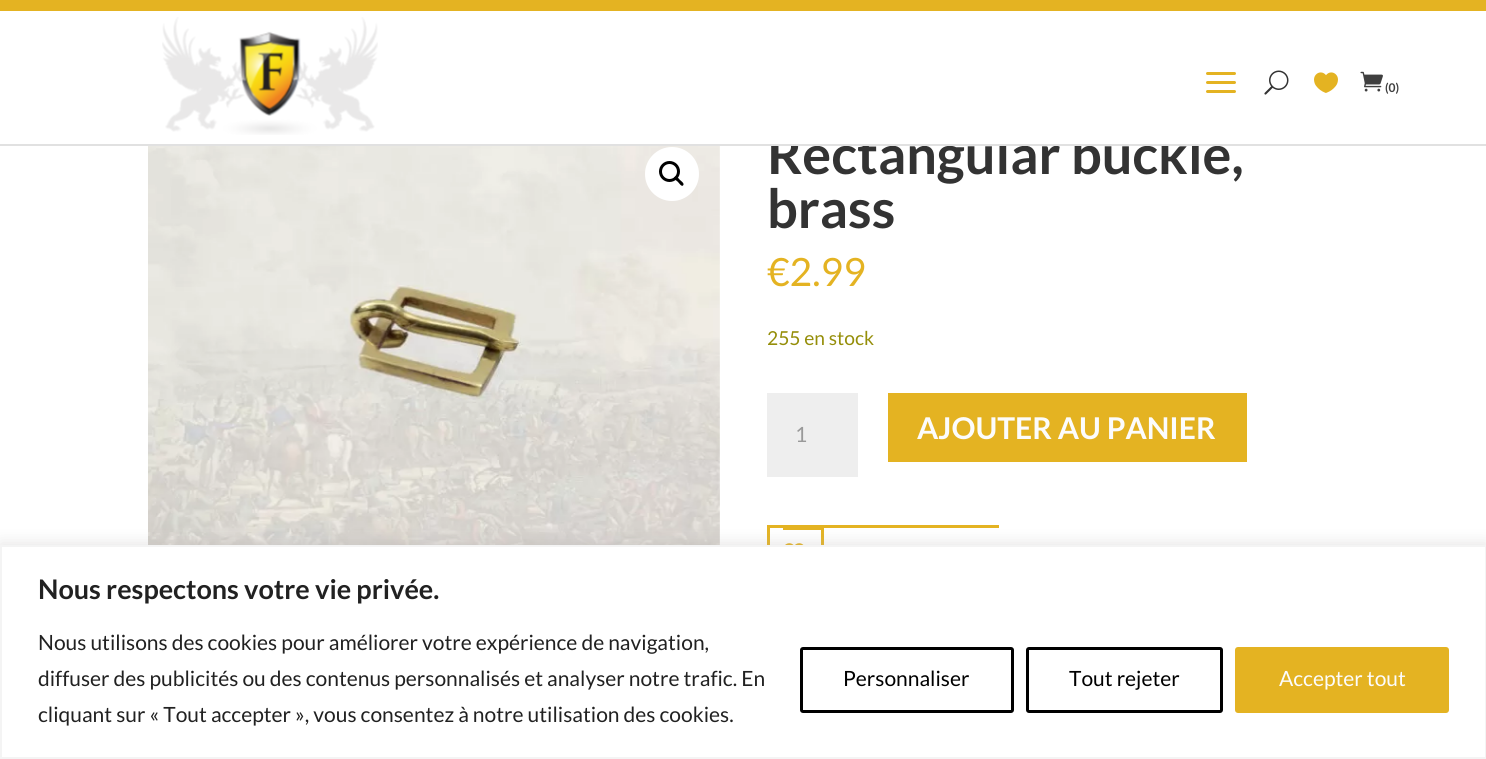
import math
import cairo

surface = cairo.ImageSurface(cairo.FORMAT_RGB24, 1486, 759)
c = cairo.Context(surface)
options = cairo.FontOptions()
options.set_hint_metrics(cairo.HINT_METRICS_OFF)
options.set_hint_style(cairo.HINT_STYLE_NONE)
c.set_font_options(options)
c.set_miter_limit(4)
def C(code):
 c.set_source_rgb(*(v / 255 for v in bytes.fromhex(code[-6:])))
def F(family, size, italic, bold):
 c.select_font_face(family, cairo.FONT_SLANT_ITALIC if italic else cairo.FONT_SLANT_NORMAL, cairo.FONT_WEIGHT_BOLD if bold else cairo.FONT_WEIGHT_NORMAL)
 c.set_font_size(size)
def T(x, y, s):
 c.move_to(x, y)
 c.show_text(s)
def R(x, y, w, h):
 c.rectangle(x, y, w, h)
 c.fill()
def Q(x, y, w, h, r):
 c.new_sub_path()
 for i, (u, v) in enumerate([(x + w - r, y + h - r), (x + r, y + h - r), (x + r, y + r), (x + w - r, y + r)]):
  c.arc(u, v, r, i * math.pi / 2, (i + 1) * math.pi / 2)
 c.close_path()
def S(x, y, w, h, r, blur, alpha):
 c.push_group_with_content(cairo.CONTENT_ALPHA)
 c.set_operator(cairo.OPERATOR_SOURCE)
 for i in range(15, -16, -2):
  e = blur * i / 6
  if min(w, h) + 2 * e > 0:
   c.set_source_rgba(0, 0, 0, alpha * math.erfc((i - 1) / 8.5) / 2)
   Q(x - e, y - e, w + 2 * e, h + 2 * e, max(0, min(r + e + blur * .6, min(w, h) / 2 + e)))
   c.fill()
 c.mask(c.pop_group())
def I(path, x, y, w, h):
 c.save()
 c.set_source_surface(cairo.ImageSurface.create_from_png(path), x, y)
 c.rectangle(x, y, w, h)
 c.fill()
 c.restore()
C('ffffff')
c.paint()
F('Lato',54,0,1)
C('333333')
T(767,174,'Rectangular buckle,')
C('ffffff')
R(771,133,428,11)
C('e1e1e1')
R(0,144,1486,2)
C('e4b322')
R(0,0,1486,11)
I('1.png',162,17,216,118)
I('2.png',1206,72,30,21)
I('3.png',1264,70,25,25)
I('4.png',1314,72,24,21)
I('5.png',1360,71,23,21)
F('Lato',12,0,1)
C('3f3f3f')
T(1385,92,'(0)')
I('7.png',719,146,1,399)
I('6.png',148,146,572,399)
C('ffffff')
c.arc(672,174,27,0,2 * math.pi)
c.fill()
c.arc(669.5,171.5,9,0,2 * math.pi)
C('000000')
c.set_line_width(3)
c.stroke()
c.new_path()
c.move_to(674.5,177)
c.curve_to(676.5,175,679,179,680,180)
c.curve_to(681,181,685,183.5,683,185.5)
c.curve_to(681.5,187,679,183,678,182)
c.curve_to(677,181,673,178.5,674.5,177)
c.close_path()
c.fill()
F('Lato',54,0,1)
C('333333')
T(767,228,'brass')
F('Lato',39,0,0)
C('e4b322')
T(767,286,'€2.99')
F('Lato',19.25,0,0)
C('958e09')
T(767,345,'255 en stock')
C('eeeeee')
R(767,393,91,84)
F('Lato',21,0,0)
C('999999')
T(795,442,'1')
C('e4b322')
R(888,393,359,69)
F('Lato',30,0,1)
C('fcfcfc')
T(917,439,'AJOUTER AU PANIER')
C('e4b322')
R(767,525,232,3)
R(767,525,3,20)
R(783,528,41,2)
R(821,527,3,18)
I('8.png',785,543,19,2)
C('acabab')
S(0,543,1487,215,0,7.5,.3)
C('ffffff')
c.rectangle(1,546,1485,212)
c.fill_preserve()
C('f4f4f4')
c.set_line_width(2)
c.stroke()
F('Lato',27,0,1)
C('212121')
T(38,599,'Nous respectons votre vie privée.')
F('Lato',21,0,0)
T(38,650,'Nous utilisons des cookies pour améliorer votre expérience de navigation,')
T(38,686,'diffuser des publicités ou des contenus personnalisés et analyser notre trafic. En')
T(38,722,'cliquant sur « Tout accepter », vous consentez à notre utilisation des cookies.')
Q(801.5,648.5,211,63,1.5)
C('000000')
c.set_line_width(3)
c.stroke()
T(843,686,'Personnaliser')
Q(1027.5,648.5,194,63,1.5)
c.stroke()
T(1069,686,'Tout rejeter')
C('e4b322')
Q(1236.5,648.5,211,63,1.5)
c.fill_preserve()
c.stroke()
C('fcfcfc')
T(1279,686,'Accepter tout')
surface.write_to_png('o.png')
